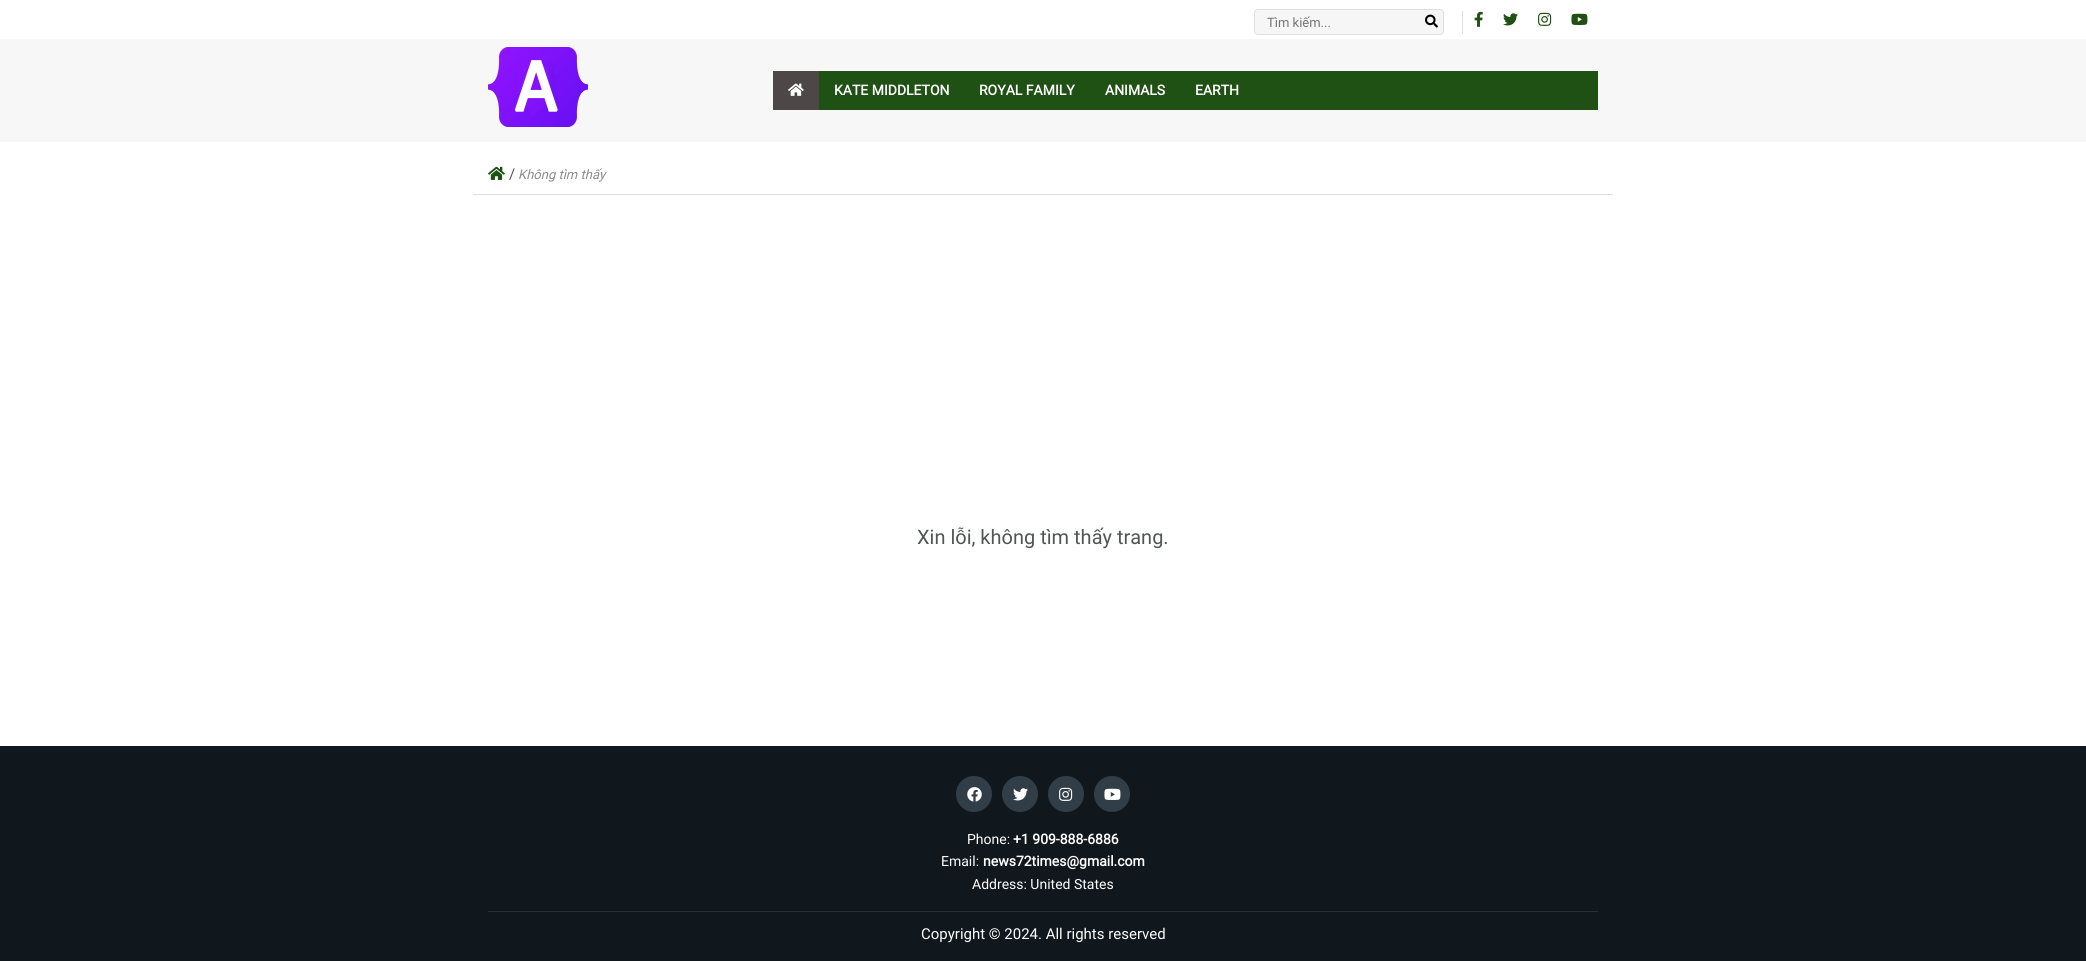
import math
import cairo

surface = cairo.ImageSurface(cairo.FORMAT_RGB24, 2086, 961)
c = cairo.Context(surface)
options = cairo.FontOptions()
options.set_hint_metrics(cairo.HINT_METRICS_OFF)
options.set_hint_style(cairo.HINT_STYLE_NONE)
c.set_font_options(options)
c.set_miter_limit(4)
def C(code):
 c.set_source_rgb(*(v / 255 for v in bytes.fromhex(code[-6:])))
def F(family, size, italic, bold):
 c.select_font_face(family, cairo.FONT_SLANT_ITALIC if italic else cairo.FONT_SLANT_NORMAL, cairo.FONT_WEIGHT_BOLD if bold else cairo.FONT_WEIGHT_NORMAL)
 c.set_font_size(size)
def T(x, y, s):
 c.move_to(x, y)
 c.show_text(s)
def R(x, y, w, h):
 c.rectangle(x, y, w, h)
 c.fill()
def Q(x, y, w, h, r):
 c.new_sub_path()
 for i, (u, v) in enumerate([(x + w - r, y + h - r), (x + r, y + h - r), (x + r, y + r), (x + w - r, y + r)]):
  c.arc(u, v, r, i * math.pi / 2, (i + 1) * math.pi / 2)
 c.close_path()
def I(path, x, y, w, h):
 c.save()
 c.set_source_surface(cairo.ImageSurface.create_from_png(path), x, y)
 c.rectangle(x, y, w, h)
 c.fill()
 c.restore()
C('ffffff')
c.paint()
C('f6f6f6')
Q(1254.5,9.5,189,25,3.5)
c.fill_preserve()
C('dfdfdf')
c.set_line_width(1)
c.stroke()
F('Roboto',13,0,0)
C('757575')
T(1267,27,'Tìm kiếm...')
I('1.png',1425,14,13,14)
C('dfdfdf')
R(1462,11,1,23)
I('2.png',1474,11,9,16)
I('3.png',1503,13,15,13)
I('4.png',1538,12,14,14)
I('5.png',1571,13,17,12)
C('f7f7f7')
R(0,39,2086,103)
I('6.png',488,47,100,80)
C('1f5014')
R(819,71,779,39)
C('4d4747')
R(773,71,46,39)
I('7.png',788,83,16,13)
F('Roboto',14,0,1)
C('ffffff')
T(834,95,'KATE MIDDLETON')
T(979,95,'ROYAL FAMILY')
T(1105,95,'ANIMALS')
T(1195,95,'EARTH')
C('dfdfdf')
R(473,194,1140,1)
I('8.png',488,166,17,14)
F('Roboto',15,0,0)
C('515555')
T(509,179,'/')
F('Roboto',13,1,0)
C('8b8b8b')
T(518,179,'Không tìm thấy')
F('Roboto',20,0,0)
C('515555')
T(917,544,'Xin lỗi, không tìm thấy trang.')
C('10181e')
R(0,746,2086,215)
C('313d47')
c.new_path()
c.arc(974,794,18,0,2 * math.pi)
c.fill()
I('9.png',967,787,15,15)
c.arc(1020,794,18,0,2 * math.pi)
c.fill()
I('10.png',1013,788,15,13)
c.arc(1066,794,18,0,2 * math.pi)
c.fill()
I('11.png',1059,787,14,14)
c.arc(1112,794,18,0,2 * math.pi)
c.fill()
I('12.png',1104,788,17,12)
F('Roboto',14,0,0)
C('ffffff')
T(967,844,'Phone:')
F('Roboto',14,0,1)
T(1013,844,'+1 909-888-6886')
F('Roboto',14,0,0)
T(941,866,'Email:')
F('Roboto',14,0,1)
T(983,866,'news72times@gmail.com')
F('Roboto',14,0,0)
T(972,889,'Address: United States')
C('283035')
R(488,911,1110,1)
F('Roboto',15,0,0)
C('ffffff')
T(921,939,'Copyright © 2024. All rights reserved')
surface.write_to_png('o.png')
